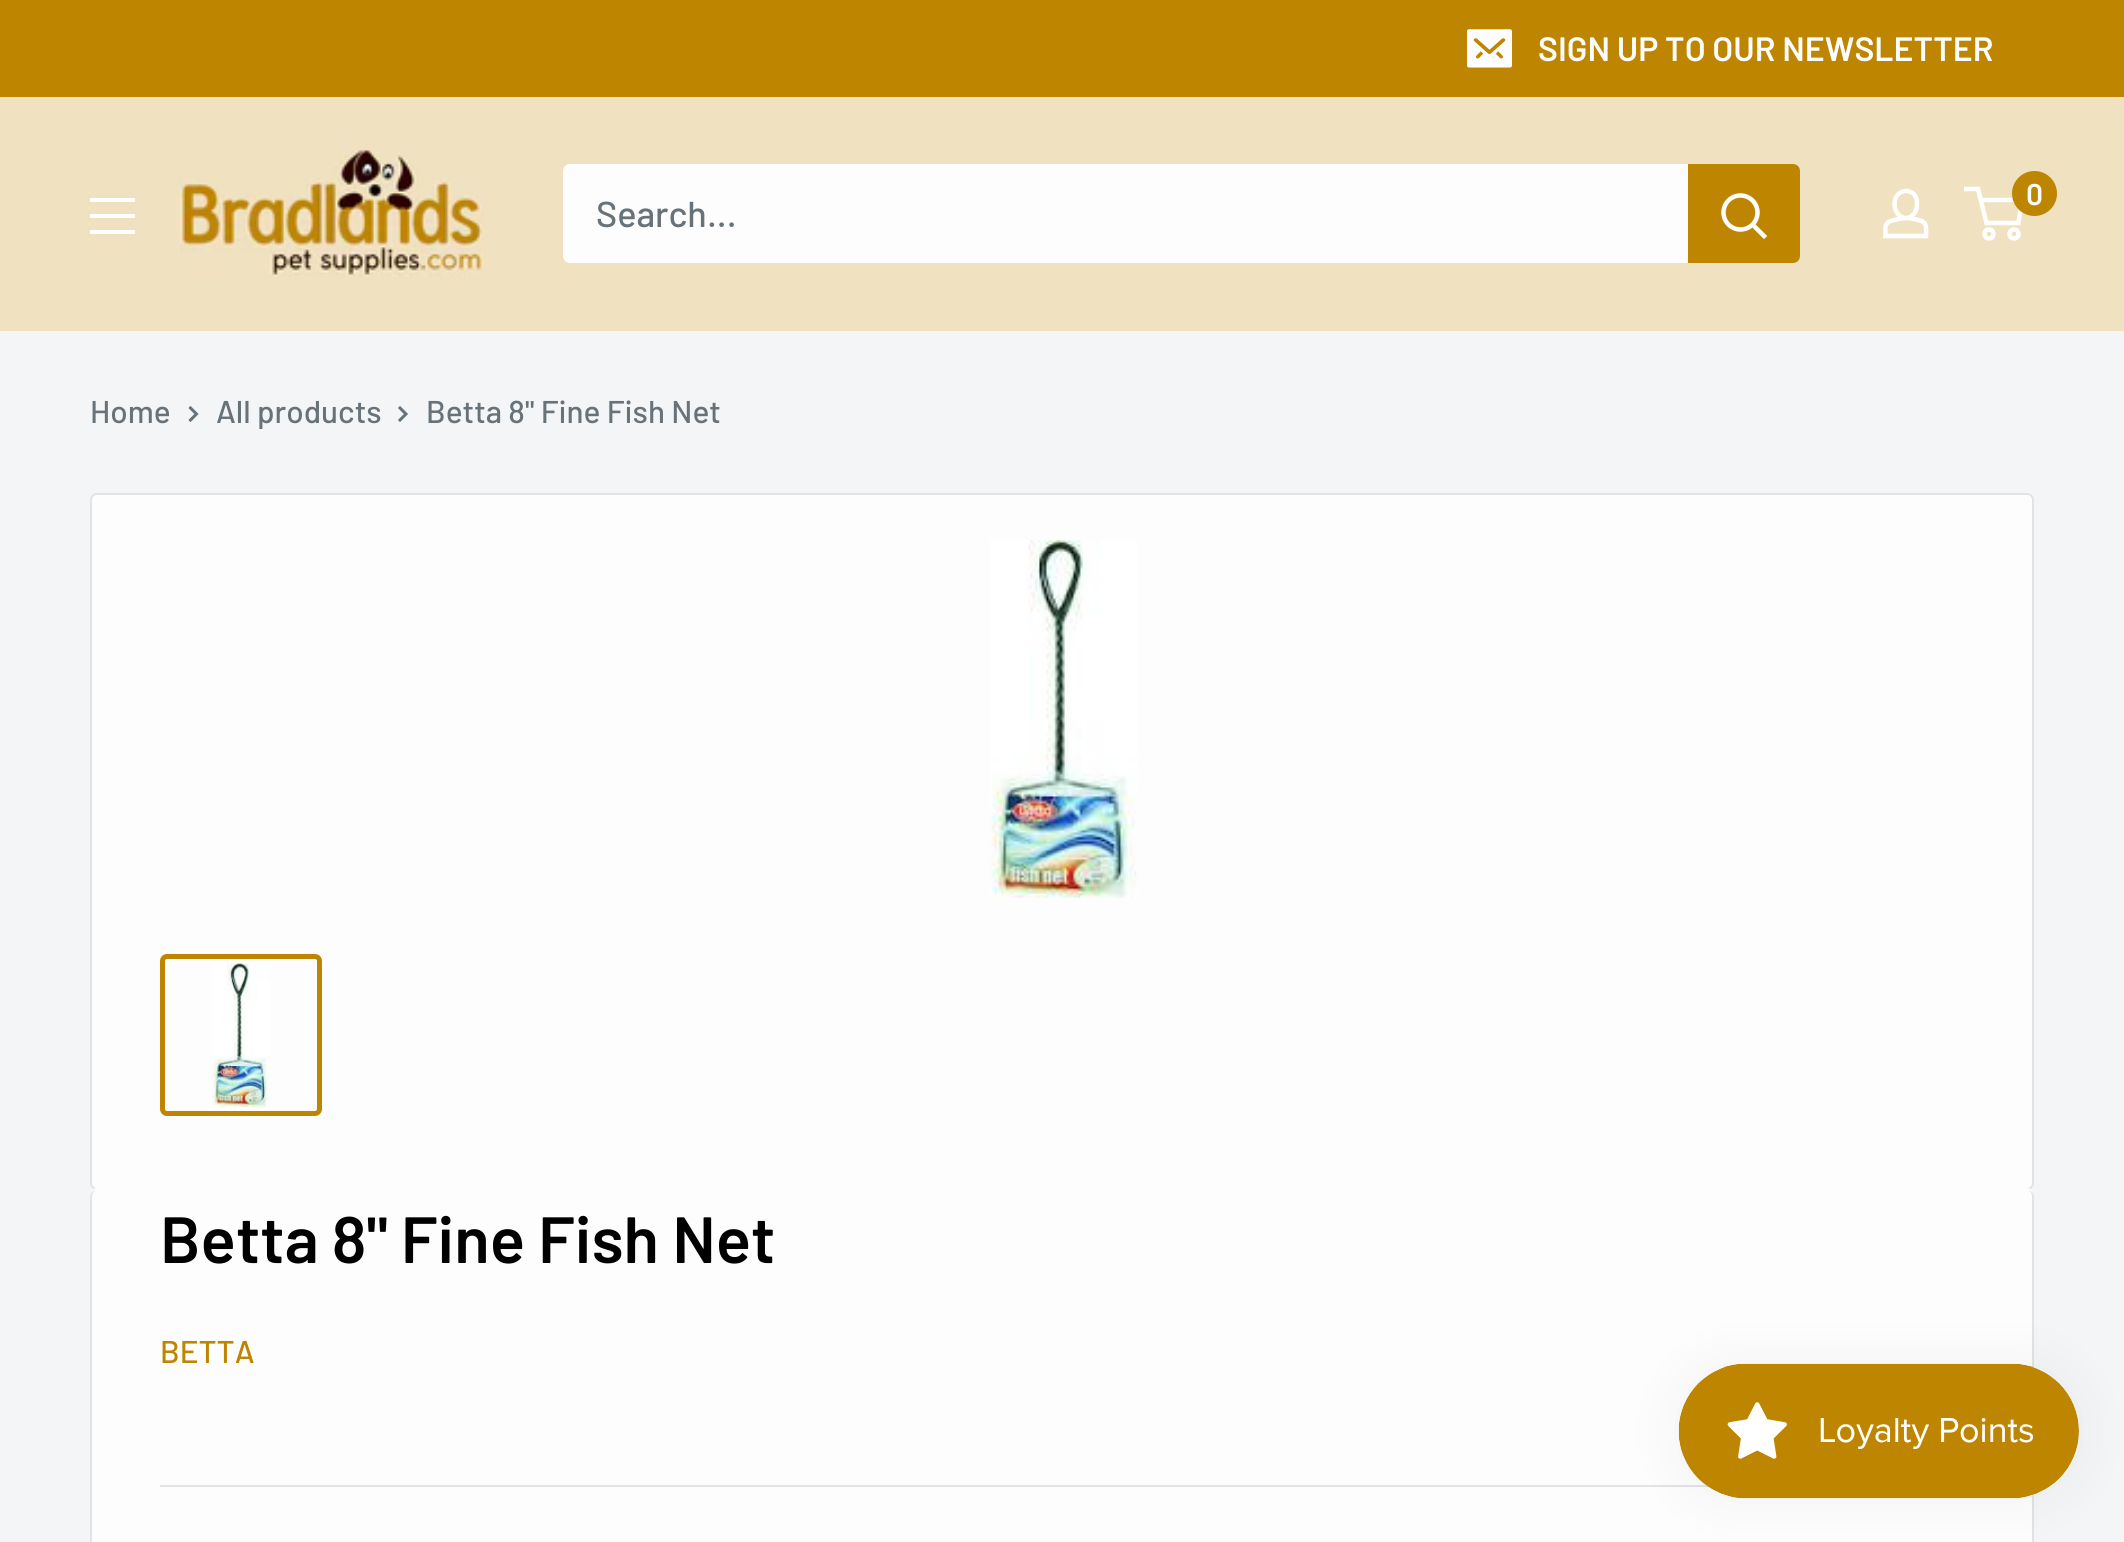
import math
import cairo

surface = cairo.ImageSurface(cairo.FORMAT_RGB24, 2124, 1542)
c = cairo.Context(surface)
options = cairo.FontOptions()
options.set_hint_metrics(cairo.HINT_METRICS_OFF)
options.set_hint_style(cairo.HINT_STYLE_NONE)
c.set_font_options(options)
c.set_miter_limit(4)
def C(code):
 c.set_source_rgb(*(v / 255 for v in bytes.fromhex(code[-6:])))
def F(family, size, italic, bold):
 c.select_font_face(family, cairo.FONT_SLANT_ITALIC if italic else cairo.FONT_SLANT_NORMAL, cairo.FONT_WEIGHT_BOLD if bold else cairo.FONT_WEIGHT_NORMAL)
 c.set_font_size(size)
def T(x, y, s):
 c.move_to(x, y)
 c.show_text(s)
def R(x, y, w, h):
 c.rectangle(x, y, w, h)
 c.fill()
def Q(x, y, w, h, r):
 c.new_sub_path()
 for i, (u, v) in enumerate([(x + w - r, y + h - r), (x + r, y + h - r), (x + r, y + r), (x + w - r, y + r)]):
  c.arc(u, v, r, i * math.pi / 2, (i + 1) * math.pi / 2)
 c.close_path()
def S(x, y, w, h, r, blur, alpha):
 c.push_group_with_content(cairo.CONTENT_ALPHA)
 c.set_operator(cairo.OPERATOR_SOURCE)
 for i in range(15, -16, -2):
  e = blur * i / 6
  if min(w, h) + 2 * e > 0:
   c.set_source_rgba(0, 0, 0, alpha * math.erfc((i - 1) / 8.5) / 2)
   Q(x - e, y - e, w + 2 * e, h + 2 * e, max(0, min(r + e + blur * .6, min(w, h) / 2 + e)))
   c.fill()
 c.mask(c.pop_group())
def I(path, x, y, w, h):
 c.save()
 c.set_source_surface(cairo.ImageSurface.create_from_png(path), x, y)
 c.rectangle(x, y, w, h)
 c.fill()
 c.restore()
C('f3f5f6')
c.paint()
C('be8500')
R(0,0,2124,97)
I('1.png',1467,29,45,39)
F('Barlow SemiBold',33.75,0,0)
C('fdfdfd')
T(1538,61,'SIGN UP TO OUR NEWSLETTER')
C('f0e1c0')
R(0,97,2124,234)
I('2.png',180,142,304,135)
c.new_path()
c.move_to(1906,218)
c.curve_to(1910,218,1914,219,1918.5,220)
c.curve_to(1928,222.5,1926,228,1926,236)
c.line_to(1885.5,236)
c.curve_to(1885.5,227,1883.5,222.5,1894,220)
c.curve_to(1898,219,1902,218.5,1906,218)
c.close_path()
c.move_to(1906,218)
c.curve_to(1892,218,1889.5,191.5,1906,191)
c.curve_to(1922,191,1919.5,218,1906,218)
c.close_path()
C('ffffff')
c.set_line_width(4.5)
c.stroke()
c.arc(1989,234,4.5,0,2 * math.pi)
c.stroke()
c.arc(2014,234,4.5,0,2 * math.pi)
c.stroke()
c.new_path()
c.move_to(1980.5,200)
c.line_to(2022,200)
c.line_to(2018.5,223)
c.line_to(1986.5,223)
c.line_to(1978,189)
c.line_to(1964,189)
c.stroke()
C('be8500')
c.arc(2034.5,193.5,22.5,0,2 * math.pi)
c.fill()
F('Barlow SemiBold',30,0,0)
C('fdfdfd')
T(2026,205,'0')
C('ffffff')
c.set_fill_rule(cairo.FILL_RULE_EVEN_ODD)
c.new_path()
c.move_to(90,230)
c.line_to(135,230)
c.line_to(135,234)
c.line_to(90,234)
c.close_path()
c.move_to(90,198)
c.line_to(135,198)
c.line_to(135,202)
c.line_to(90,202)
c.close_path()
c.move_to(90,214)
c.line_to(135,214)
c.line_to(135,218)
c.line_to(90,218)
c.close_path()
c.fill()
C('fdfdfd')
Q(563,164,1237,99,7)
c.fill()
F('Barlow Medium',36,0,0)
C('677279')
T(596,227,'Search...')
C('be8500')
c.new_path()
c.move_to(1688,164)
c.line_to(1793,164)
c.curve_to(1797,164,1800,167,1800,171)
c.line_to(1800,256)
c.curve_to(1800,260,1797,263,1793,263)
c.line_to(1688,263)
c.close_path()
c.fill()
c.new_path()
c.move_to(1764,236)
c.line_to(1753,225)
C('fdfdfd')
c.set_line_cap(cairo.LINE_CAP_SQUARE)
c.stroke()
c.arc(1740.5,212.5,17,0,2 * math.pi)
c.set_line_cap(cairo.LINE_CAP_BUTT)
c.stroke()
F('Barlow Medium',31.5,0,0)
C('677279')
T(90,423,'Home')
c.new_path()
c.move_to(190.5,408)
c.line_to(196.5,414)
c.line_to(190.5,420)
c.set_line_width(3)
c.set_line_cap(cairo.LINE_CAP_SQUARE)
c.stroke()
T(216,423,'All products')
c.new_path()
c.move_to(400,408)
c.line_to(406,414)
c.line_to(400,420)
c.stroke()
T(426,423,'Betta 8" Fine Fish Net')
C('fdfdfd')
Q(91,494,1942,695,6)
c.fill_preserve()
C('e1e3e4')
c.set_line_width(2)
c.set_line_cap(cairo.LINE_CAP_BUTT)
c.stroke()
I('3.png',990,540,147,358)
Q(162.5,956.5,157,157,4.5)
C('be8500')
c.set_line_width(5)
c.stroke()
I('4.png',212,963,59,144)
C('fdfdfd')
c.set_fill_rule(cairo.FILL_RULE_WINDING)
c.new_path()
c.move_to(97,1188)
c.curve_to(92,1188,90,1193,90,1197)
c.curve_to(90,1193,93,1190,97,1190)
c.line_to(2027,1190)
c.curve_to(2031,1190,2034,1193,2034,1197)
c.curve_to(2034,1193,2032,1188,2027,1188)
c.close_path()
c.fill()
Q(90,1190,1944,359,7)
c.fill()
C('e1e3e4')
c.set_fill_rule(cairo.FILL_RULE_EVEN_ODD)
c.new_path()
c.move_to(97,1190)
c.line_to(2027,1190)
c.curve_to(2031,1190,2034,1193,2034,1197)
c.line_to(2034,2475)
c.curve_to(2034,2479,2031,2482,2027,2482)
c.line_to(97,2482)
c.curve_to(93,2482,90,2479,90,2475)
c.line_to(90,1197)
c.curve_to(90,1193,93,1190,97,1190)
c.close_path()
c.move_to(97,1190)
c.line_to(2027,1190)
c.curve_to(2030,1190,2032,1193,2032,1197)
c.line_to(2032,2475)
c.curve_to(2032,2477,2030,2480,2027,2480)
c.line_to(97,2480)
c.curve_to(94,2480,92,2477,92,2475)
c.line_to(92,1197)
c.curve_to(92,1193,94,1190,97,1190)
c.close_path()
c.fill()
F('Barlow SemiBold',65.25,0,0)
C('000000')
T(160,1263,'Betta 8" Fine Fish Net')
F('Barlow Medium',31.5,0,0)
C('be8500')
T(160,1363,'BETTA')
C('e1e3e4')
R(160,1485,1549,2)
C('000000')
S(1679,1364,400,135,67.5,28,.05)
I('5.png',1678,1363,401,136)
surface.write_to_png('o.png')
